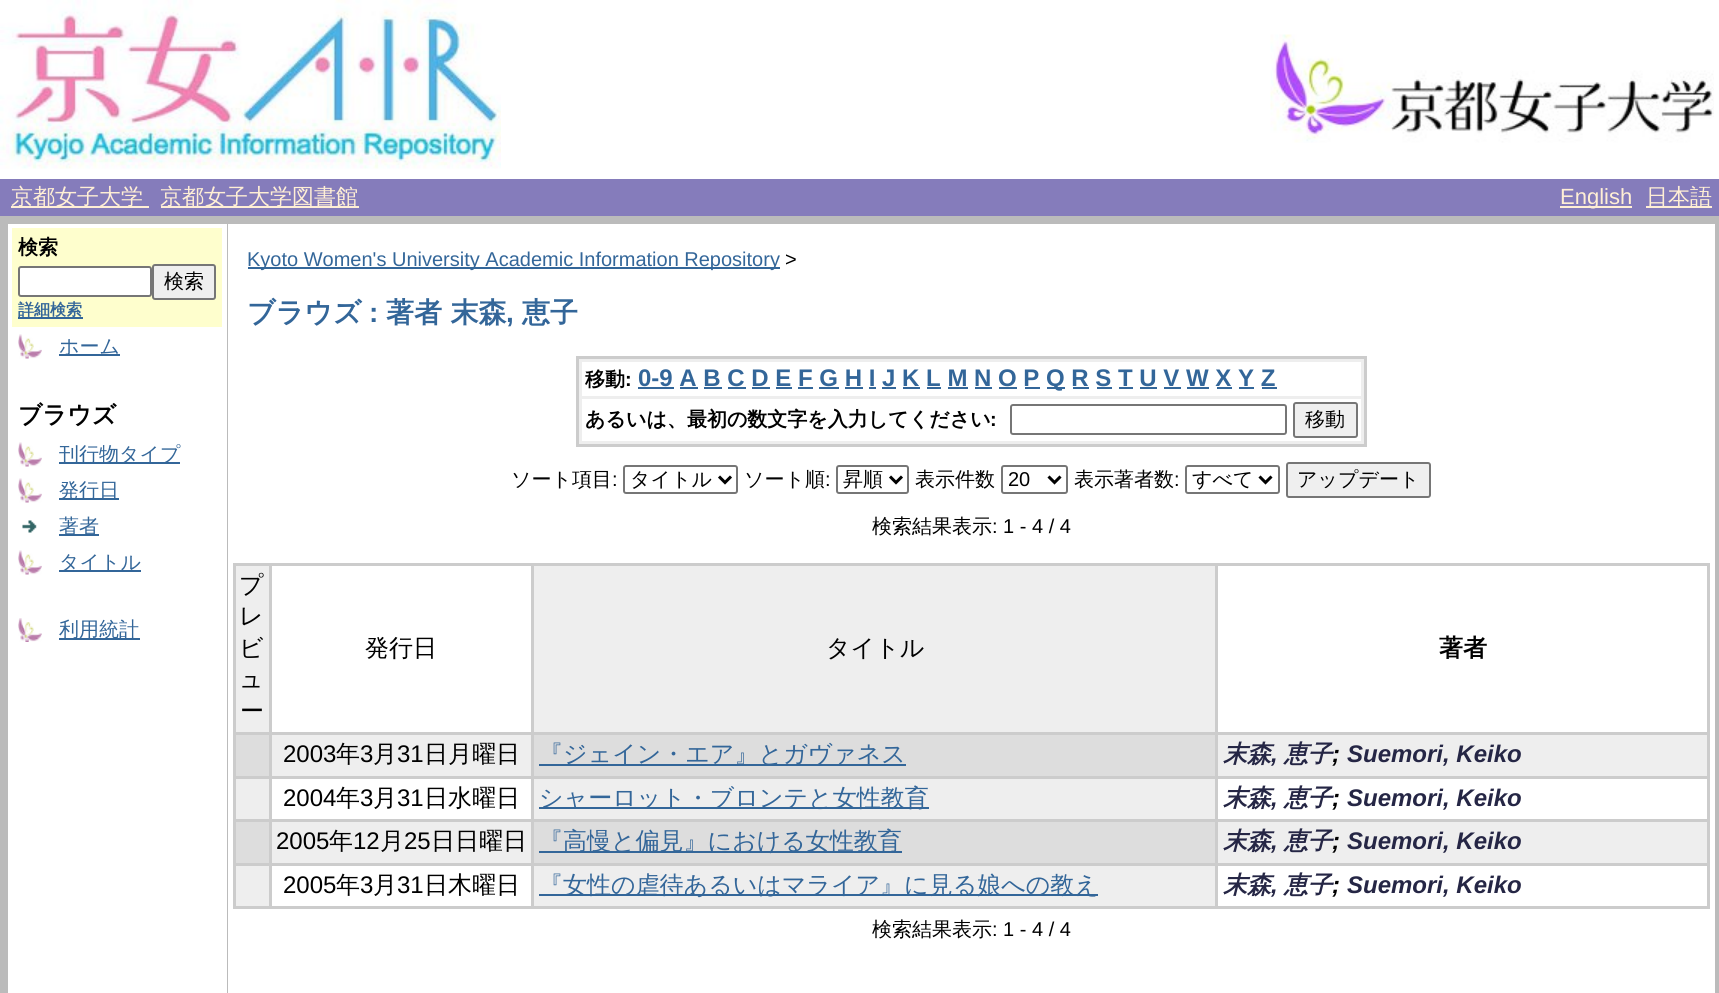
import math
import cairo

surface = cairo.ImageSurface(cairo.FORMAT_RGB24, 1719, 993)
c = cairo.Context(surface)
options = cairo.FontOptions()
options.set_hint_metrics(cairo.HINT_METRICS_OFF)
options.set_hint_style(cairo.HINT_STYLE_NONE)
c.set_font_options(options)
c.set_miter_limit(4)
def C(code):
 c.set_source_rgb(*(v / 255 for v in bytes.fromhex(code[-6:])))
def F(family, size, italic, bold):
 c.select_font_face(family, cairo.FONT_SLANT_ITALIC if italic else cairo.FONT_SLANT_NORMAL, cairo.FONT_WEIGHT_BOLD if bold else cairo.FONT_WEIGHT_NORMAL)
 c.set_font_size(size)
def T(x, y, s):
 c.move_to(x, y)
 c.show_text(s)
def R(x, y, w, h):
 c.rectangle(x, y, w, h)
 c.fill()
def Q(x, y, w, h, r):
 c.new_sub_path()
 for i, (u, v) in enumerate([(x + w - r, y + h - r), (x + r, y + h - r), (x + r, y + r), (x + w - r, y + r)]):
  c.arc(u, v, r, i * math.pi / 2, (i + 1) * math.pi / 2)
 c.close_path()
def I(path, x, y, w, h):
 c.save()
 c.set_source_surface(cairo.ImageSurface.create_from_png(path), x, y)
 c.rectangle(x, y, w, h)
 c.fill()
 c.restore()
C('bbbbbb')
c.paint()
C('ffffff')
R(0,0,1719,179)
I('1.png',0,0,501,169)
I('2.png',1270,34,444,109)
C('857cbb')
R(0,179,1719,37)
C('ffefd5')
R(11,206,138,2)
F('WenQuanYi Zen Hei Medium',22,0,0)
T(11,204,'京都女子大学')
R(161,206,198,2)
T(160,204,'京都女子大学図書館')
R(1560,206,72,2)
F('Liberation Sans',22,0,0)
T(1560,204,'English')
R(1646,206,66,2)
F('WenQuanYi Zen Hei Medium',22,0,0)
T(1646,204,'日本語')
C('ffffff')
R(8,224,219,769)
C('fefecd')
R(12,228,210,99)
F('WenQuanYi Zen Hei',20,0,1)
C('000000')
T(18,254,'検索')
C('ffffff')
Q(19,267,132,29,2)
c.fill_preserve()
C('767676')
c.stroke()
C('efefef')
Q(153,265,62,34,2)
c.fill_preserve()
C('767676')
c.stroke()
F('WenQuanYi Zen Hei Medium',20,0,0)
C('000000')
T(164,288,'検索')
C('336699')
R(18,317,65,2)
F('WenQuanYi Zen Hei',16,0,1)
T(18,315,'詳細検索')
I('3.png',18,334,24,25)
R(59,354,61,2)
F('WenQuanYi Zen Hei Medium',20,0,0)
T(59,353,'ホーム')
F('WenQuanYi Zen Hei',24,0,1)
C('000000')
T(18,423,'ブラウズ')
I('4.png',18,442,24,25)
C('336699')
R(59,462,121,2)
F('WenQuanYi Zen Hei Medium',20,0,0)
T(59,461,'刊行物タイプ')
I('4.png',18,478,24,25)
R(59,498,60,2)
T(59,497,'発行日')
I('5.png',22,520,15,13)
R(59,534,40,2)
T(59,533,'著者')
I('6.png',18,550,24,25)
R(59,570,82,2)
T(59,569,'タイトル')
I('7.png',18,618,24,24)
R(59,638,81,2)
T(59,636,'利用統計')
C('ffffff')
R(228,224,1487,769)
C('336699')
R(248,267,532,2)
F('Liberation Sans',20,0,0)
T(247,266,'Kyoto Women\'s University Academic Information Repository')
C('000000')
T(785,266,'>')
F('WenQuanYi Zen Hei',28,0,1)
C('336699')
T(247,322,'ブラウズ')
F('Liberation Sans',28,0,1)
T(369,322,':')
F('WenQuanYi Zen Hei',28,0,1)
T(386,322,'著者 末森')
F('Liberation Sans',28,0,1)
T(506,322,',')
F('WenQuanYi Zen Hei',28,0,1)
T(522,322,'恵子')
C('cccccc')
R(576,356,791,91)
C('eeeeee')
R(579,359,785,85)
C('ffffff')
R(582,362,779,34)
F('WenQuanYi Zen Hei',20,0,1)
C('000000')
T(585,386,'移動')
F('Liberation Sans',20,0,1)
T(625,386,':')
F('Liberation Sans',24,0,1)
C('336699')
T(638,386,'0-9 A B C D E F G H I J K L M N O P')
R(638,387,36,2)
R(1047,387,18,2)
T(1046,386,'Q R S T U V W X Y Z')
R(680,387,18,2)
R(704,387,18,2)
R(728,387,18,2)
R(752,387,18,2)
R(776,387,16,2)
R(798,387,15,2)
R(819,387,20,2)
R(845,387,18,2)
R(869,387,7,2)
R(882,387,14,2)
R(903,387,17,2)
R(927,387,14,2)
R(948,387,20,2)
R(975,387,17,2)
R(999,387,18,2)
R(1025,387,15,2)
R(1073,387,16,2)
R(1097,387,15,2)
R(1119,387,14,2)
R(1140,387,17,2)
R(1164,387,17,2)
R(1187,387,22,2)
R(1217,387,15,2)
R(1239,387,15,2)
R(1262,387,15,2)
C('ffffff')
R(582,399,779,42)
F('WenQuanYi Zen Hei',20,0,1)
C('000000')
T(585,426,'あるいは、最初の数文字を入力してください')
F('Liberation Sans',20,0,1)
T(990,426,':')
Q(1011,405,275,29,2)
C('767676')
c.stroke()
C('efefef')
Q(1294,403,63,34,2)
c.fill_preserve()
C('767676')
c.stroke()
F('WenQuanYi Zen Hei Medium',20,0,0)
C('000000')
T(1305,426,'移動')
T(511,486,'ソート項目')
F('Liberation Sans',20,0,0)
T(612,486,':')
Q(624,466,113,27,2)
C('767676')
c.stroke()
c.new_path()
c.move_to(719,476.5)
c.line_to(725,482.5)
c.line_to(731,476.5)
C('000000')
c.set_line_width(3)
c.stroke()
F('WenQuanYi Zen Hei Medium',20,0,0)
T(630,486,'タイトル')
T(744,486,'ソート順')
F('Liberation Sans',20,0,0)
T(825,486,':')
Q(837,466,71,27,2)
C('767676')
c.set_line_width(2)
c.stroke()
c.new_path()
c.move_to(890,476.5)
c.line_to(896,482.5)
c.line_to(902,476.5)
C('000000')
c.set_line_width(3)
c.stroke()
F('WenQuanYi Zen Hei Medium',20,0,0)
T(843,486,'昇順')
T(915,486,'表示件数')
Q(1002,466,65,27,2)
C('767676')
c.set_line_width(2)
c.stroke()
c.new_path()
c.move_to(1048.5,476.5)
c.line_to(1054.5,482.5)
c.line_to(1060.5,476.5)
C('000000')
c.set_line_width(3)
c.stroke()
F('Liberation Sans',20,0,0)
T(1008,486,'20')
F('WenQuanYi Zen Hei Medium',20,0,0)
T(1074,486,'表示著者数')
F('Liberation Sans',20,0,0)
T(1174,486,':')
Q(1186,466,93,27,2)
C('767676')
c.set_line_width(2)
c.stroke()
c.new_path()
c.move_to(1259.5,476.5)
c.line_to(1265.5,482.5)
c.line_to(1271.5,476.5)
C('000000')
c.set_line_width(3)
c.stroke()
F('WenQuanYi Zen Hei Medium',20,0,0)
T(1192,486,'すべて')
C('efefef')
Q(1287,463,143,34,2)
c.fill_preserve()
C('767676')
c.set_line_width(2)
c.stroke()
C('000000')
T(1297,486,'アップデート')
T(872,533,'検索結果表示')
F('Liberation Sans',20,0,0)
T(992,533,': 1 - 4 / 4')
C('cccccc')
R(233,563,1477,346)
C('eeeeee')
R(236,566,33,166)
F('WenQuanYi Zen Hei Medium',24,0,0)
C('000000')
T(239,593,'プ')
T(239,624,'レ')
T(239,656,'ビ')
T(239,687,'ュ')
T(240,719,'ー')
C('ffffff')
R(272,566,259,166)
C('000000')
T(365,656,'発行日')
C('eeeeee')
R(534,566,681,166)
C('000000')
T(826,656,'タイトル')
C('ffffff')
R(1218,566,489,166)
F('WenQuanYi Zen Hei',24,0,1)
C('000000')
T(1439,656,'著者')
C('dddddd')
R(236,735,33,41)
C('eeeeee')
R(272,735,259,41)
F('Liberation Sans',24,0,0)
C('000000')
T(283,762,'2003')
F('WenQuanYi Zen Hei Medium',24,0,0)
T(336,762,'年')
F('Liberation Sans',24,0,0)
T(360,762,'3')
F('WenQuanYi Zen Hei Medium',24,0,0)
T(373,762,'月')
F('Liberation Sans',24,0,0)
T(397,762,'31')
F('WenQuanYi Zen Hei Medium',24,0,0)
T(424,762,'日月曜日')
C('dddddd')
R(534,735,681,41)
C('336699')
R(539,764,367,2)
T(539,762,'『ジェイン・エア』とガヴァネス')
C('eeeeee')
R(1218,735,489,41)
F('WenQuanYi Zen Hei',24,1,1)
C('252645')
T(1223,762,'末森')
T(1284,762,'恵子')
F('Liberation Sans',24,1,1)
C('000000')
T(1332,762,';')
C('252645')
T(1347,762,'Suemori, Keiko')
T(1271,762,',')
C('eeeeee')
R(236,779,33,40)
C('ffffff')
R(272,779,259,40)
F('Liberation Sans',24,0,0)
C('000000')
T(283,806,'2004')
F('WenQuanYi Zen Hei Medium',24,0,0)
T(336,806,'年')
F('Liberation Sans',24,0,0)
T(360,806,'3')
F('WenQuanYi Zen Hei Medium',24,0,0)
T(373,806,'月')
F('Liberation Sans',24,0,0)
T(397,806,'31')
F('WenQuanYi Zen Hei Medium',24,0,0)
T(424,806,'日水曜日')
C('eeeeee')
R(534,779,681,40)
C('336699')
R(539,807,390,2)
T(539,806,'シャーロット・ブロンテと女性教育')
C('ffffff')
R(1218,779,489,40)
F('WenQuanYi Zen Hei',24,1,1)
C('252645')
T(1223,806,'末森')
T(1284,806,'恵子')
F('Liberation Sans',24,1,1)
C('000000')
T(1332,806,';')
C('252645')
T(1347,806,'Suemori, Keiko')
T(1271,806,',')
C('dddddd')
R(236,822,33,41)
C('eeeeee')
R(272,822,259,41)
F('Liberation Sans',24,0,0)
C('000000')
T(276,849,'2005')
F('WenQuanYi Zen Hei Medium',24,0,0)
T(329,849,'年')
F('Liberation Sans',24,0,0)
T(353,849,'12')
F('WenQuanYi Zen Hei Medium',24,0,0)
T(380,849,'月')
F('Liberation Sans',24,0,0)
T(404,849,'25')
F('WenQuanYi Zen Hei Medium',24,0,0)
T(431,849,'日日曜日')
C('dddddd')
R(534,822,681,41)
C('336699')
R(539,851,363,2)
T(539,849,'『高慢と偏見』における女性教育')
C('eeeeee')
R(1218,822,489,41)
F('WenQuanYi Zen Hei',24,1,1)
C('252645')
T(1223,849,'末森')
T(1284,849,'恵子')
F('Liberation Sans',24,1,1)
C('000000')
T(1332,849,';')
C('252645')
T(1347,849,'Suemori, Keiko')
T(1271,849,',')
C('eeeeee')
R(236,866,33,40)
C('ffffff')
R(272,866,259,40)
F('Liberation Sans',24,0,0)
C('000000')
T(283,893,'2005')
F('WenQuanYi Zen Hei Medium',24,0,0)
T(336,893,'年')
F('Liberation Sans',24,0,0)
T(360,893,'3')
F('WenQuanYi Zen Hei Medium',24,0,0)
T(373,893,'月')
F('Liberation Sans',24,0,0)
T(397,893,'31')
F('WenQuanYi Zen Hei Medium',24,0,0)
T(424,893,'日木曜日')
C('eeeeee')
R(534,866,681,40)
C('336699')
R(539,894,559,2)
T(539,893,'『女性の虐待あるいはマライア』に見る娘への教え')
C('ffffff')
R(1218,866,489,40)
F('WenQuanYi Zen Hei',24,1,1)
C('252645')
T(1223,893,'末森')
T(1284,893,'恵子')
F('Liberation Sans',24,1,1)
C('000000')
T(1332,893,';')
C('252645')
T(1347,893,'Suemori, Keiko')
T(1271,893,',')
F('WenQuanYi Zen Hei Medium',20,0,0)
C('000000')
T(872,936,'検索結果表示')
F('Liberation Sans',20,0,0)
T(992,936,': 1 - 4 / 4')
surface.write_to_png('o.png')
